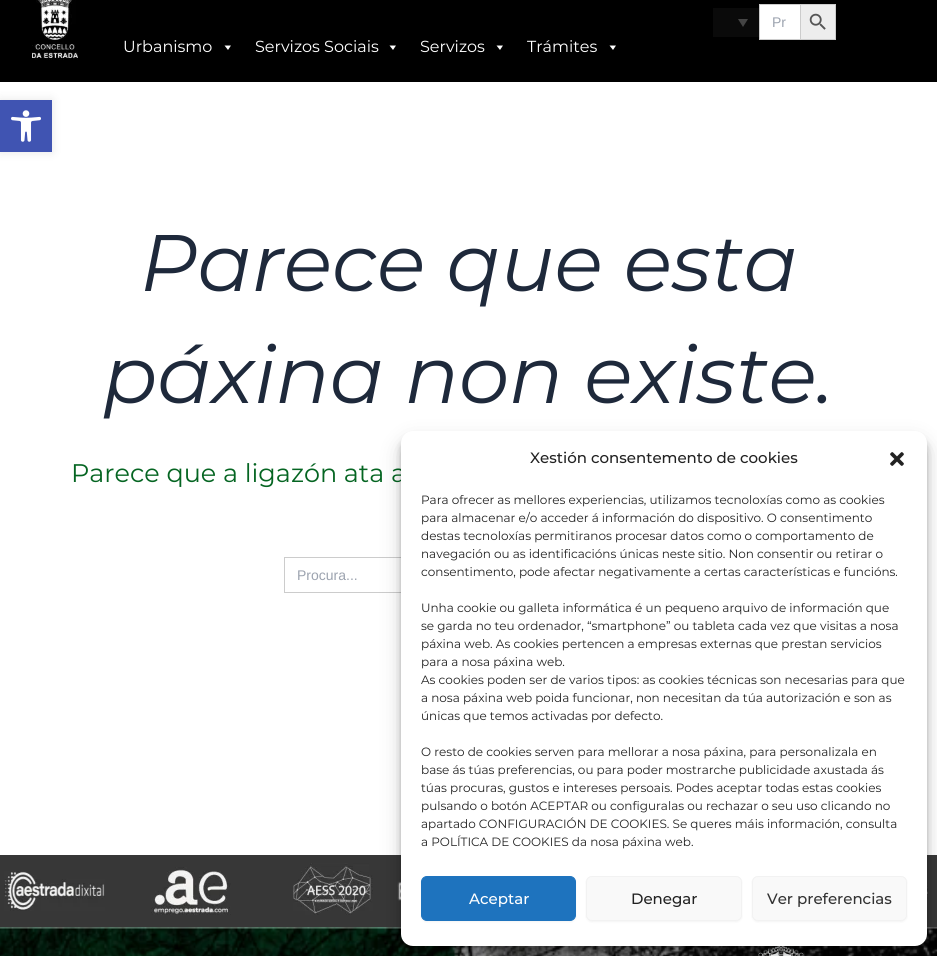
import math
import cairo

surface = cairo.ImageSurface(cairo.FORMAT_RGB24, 937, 956)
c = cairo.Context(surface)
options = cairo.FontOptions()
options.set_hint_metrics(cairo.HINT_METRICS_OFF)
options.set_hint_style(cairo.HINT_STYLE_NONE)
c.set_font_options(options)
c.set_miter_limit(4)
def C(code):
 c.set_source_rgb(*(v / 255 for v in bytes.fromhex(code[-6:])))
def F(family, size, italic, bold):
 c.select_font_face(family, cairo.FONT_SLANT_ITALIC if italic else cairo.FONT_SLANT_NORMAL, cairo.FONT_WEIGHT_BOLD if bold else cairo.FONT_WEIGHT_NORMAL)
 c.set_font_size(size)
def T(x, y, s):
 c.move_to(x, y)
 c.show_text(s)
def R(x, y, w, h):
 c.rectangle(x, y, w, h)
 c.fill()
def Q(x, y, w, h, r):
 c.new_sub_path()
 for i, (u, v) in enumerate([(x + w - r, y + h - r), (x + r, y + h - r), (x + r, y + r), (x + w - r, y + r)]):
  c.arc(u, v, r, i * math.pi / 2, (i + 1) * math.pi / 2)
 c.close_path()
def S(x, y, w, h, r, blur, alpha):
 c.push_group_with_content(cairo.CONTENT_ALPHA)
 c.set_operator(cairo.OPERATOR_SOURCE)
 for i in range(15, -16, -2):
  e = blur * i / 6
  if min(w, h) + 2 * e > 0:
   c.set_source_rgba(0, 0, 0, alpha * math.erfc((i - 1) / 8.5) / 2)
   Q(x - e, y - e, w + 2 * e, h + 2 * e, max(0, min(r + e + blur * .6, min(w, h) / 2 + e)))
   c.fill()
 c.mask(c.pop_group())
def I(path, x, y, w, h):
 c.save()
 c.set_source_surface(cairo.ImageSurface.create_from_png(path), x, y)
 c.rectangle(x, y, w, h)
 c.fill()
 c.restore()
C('ffffff')
c.paint()
C('000000')
S(0,100,52,52,0,5,.1)
C('4054b2')
R(0,100,52,52)
I('1.png',11,110,30,32)
C('000000')
R(0,0,937,82)
I('2.png',32,0,46,60)
C('0a0a0a')
R(713,8,46,29)
C('444444')
c.new_path()
c.move_to(738,19)
c.line_to(748,19)
c.line_to(743,27)
c.close_path()
c.fill()
C('ffffff')
R(760,5,40,34)
C('cccccc')
R(759,4,41,1)
R(759,39,41,1)
R(759,4,1,36)
F('Liberation Sans',14,0,0)
C('9ca3af')
T(772,27,'Pr')
C('ededed')
c.rectangle(800.5,4.5,35,35)
c.fill_preserve()
C('cccccc')
c.set_line_width(1)
c.stroke()
I('3.png',809,13,17,17)
F('Montserrat',16,0,0)
C('ffffff')
T(123,52,'Urbanismo')
c.new_path()
c.move_to(231,45.5)
c.line_to(228,50)
c.line_to(224.5,45.5)
c.close_path()
c.fill()
T(255,52,'Servizos Sociais')
c.new_path()
c.move_to(396,45.5)
c.line_to(393,50)
c.line_to(389.5,45.5)
c.close_path()
c.fill()
T(420,52,'Servizos')
c.new_path()
c.move_to(503,45.5)
c.line_to(500,50)
c.line_to(496.5,45.5)
c.close_path()
c.fill()
T(527,52,'Trámites')
c.new_path()
c.move_to(616,45.5)
c.line_to(613,50)
c.line_to(609.5,45.5)
c.close_path()
c.fill()
F('Montserrat',80,1,0)
C('1e293b')
T(140,291,'Parece que esta')
T(103,403,'páxina non existe.')
F('Montserrat',25.5,0,0)
C('056522')
T(71,482,'Parece que a ligazón ata a')
C('cccccc')
R(284,557,117,1)
R(284,592,117,1)
R(284,557,1,36)
F('Liberation Sans',14,0,0)
C('9ca3af')
T(297,580,'Procura...')
C('373737')
R(0,855,937,72)
I('4.png',4,871,101,40)
I('5.png',151,867,80,48)
I('6.png',293,863,80,52)
I('7.png',397,873,4,41)
I('8.png',927,875,1,32)
I('9.png',0,927,937,29)
I('10.png',758,946,46,10)
C('000000')
S(401,437,526,515,12,3,.23)
S(401,441,526,515,12,10,.19)
C('ffffff')
Q(401,431,526,515,12)
c.fill()
F('Montserrat Medium',15,0,0)
C('222222')
T(530,463,'Xestión consentemento de cookies')
I('11.png',890,452,14,14)
F('Montserrat',12,0,0)
T(421,504,'Para ofrecer as mellores experiencias, utilizamos tecnoloxías como as cookies')
T(421,522,'para almacenar e/o acceder á información do dispositivo. O consentimento')
T(421,540,'destas tecnoloxías permitiranos procesar datos como o comportamento de')
T(421,558,'navegación ou as identificacións únicas neste sitio. Non consentir ou retirar o')
T(421,576,'consentimento, pode afectar negativamente a certas características e funcións.')
T(421,612,'Unha cookie ou galleta informática é un pequeno arquivo de información que')
T(421,630,'se garda no teu ordenador, “smartphone” ou tableta cada vez que visitas a nosa')
T(421,648,'páxina web. As cookies pertencen a empresas externas que prestan servicios')
T(421,666,'para a nosa páxina web.')
T(421,684,'As cookies poden ser de varios tipos: as cookies técnicas son necesarias para que')
T(421,702,'a nosa páxina web poida funcionar, non necesitan da túa autorización e son as')
T(421,720,'únicas que temos activadas por defecto.')
T(421,756,'O resto de cookies serven para mellorar a nosa páxina, para personalizala en')
T(421,774,'base ás túas preferencias, ou para poder mostrarche publicidade axustada ás')
T(421,792,'túas procuras, gustos e intereses persoais. Podes aceptar todas estas cookies')
T(421,810,'pulsando o botón ACEPTAR ou configuralas ou rechazar o seu uso clicando no')
T(421,828,'apartado CONFIGURACIÓN DE COOKIES. Se queres máis información, consulta')
T(421,846,'a POLÍTICA DE COOKIES da nosa páxina web.')
C('000000')
S(421,877,155,45,6,1,.05)
C('1e73be')
Q(421.5,876.5,154,44,5.5)
c.fill_preserve()
c.stroke()
F('Montserrat Medium',15,0,0)
C('ffffff')
T(469,904,'Aceptar')
C('000000')
S(586,877,156,45,6,1,.05)
C('f9f9f9')
Q(586.5,876.5,155,44,5.5)
c.fill_preserve()
C('f2f2f2')
c.stroke()
C('222222')
T(631,904,'Denegar')
C('000000')
S(752,877,155,45,6,1,.05)
C('f9f9f9')
Q(752.5,876.5,154,44,5.5)
c.fill_preserve()
C('f2f2f2')
c.stroke()
C('333333')
T(767,904,'Ver preferencias')
surface.write_to_png('o.png')
